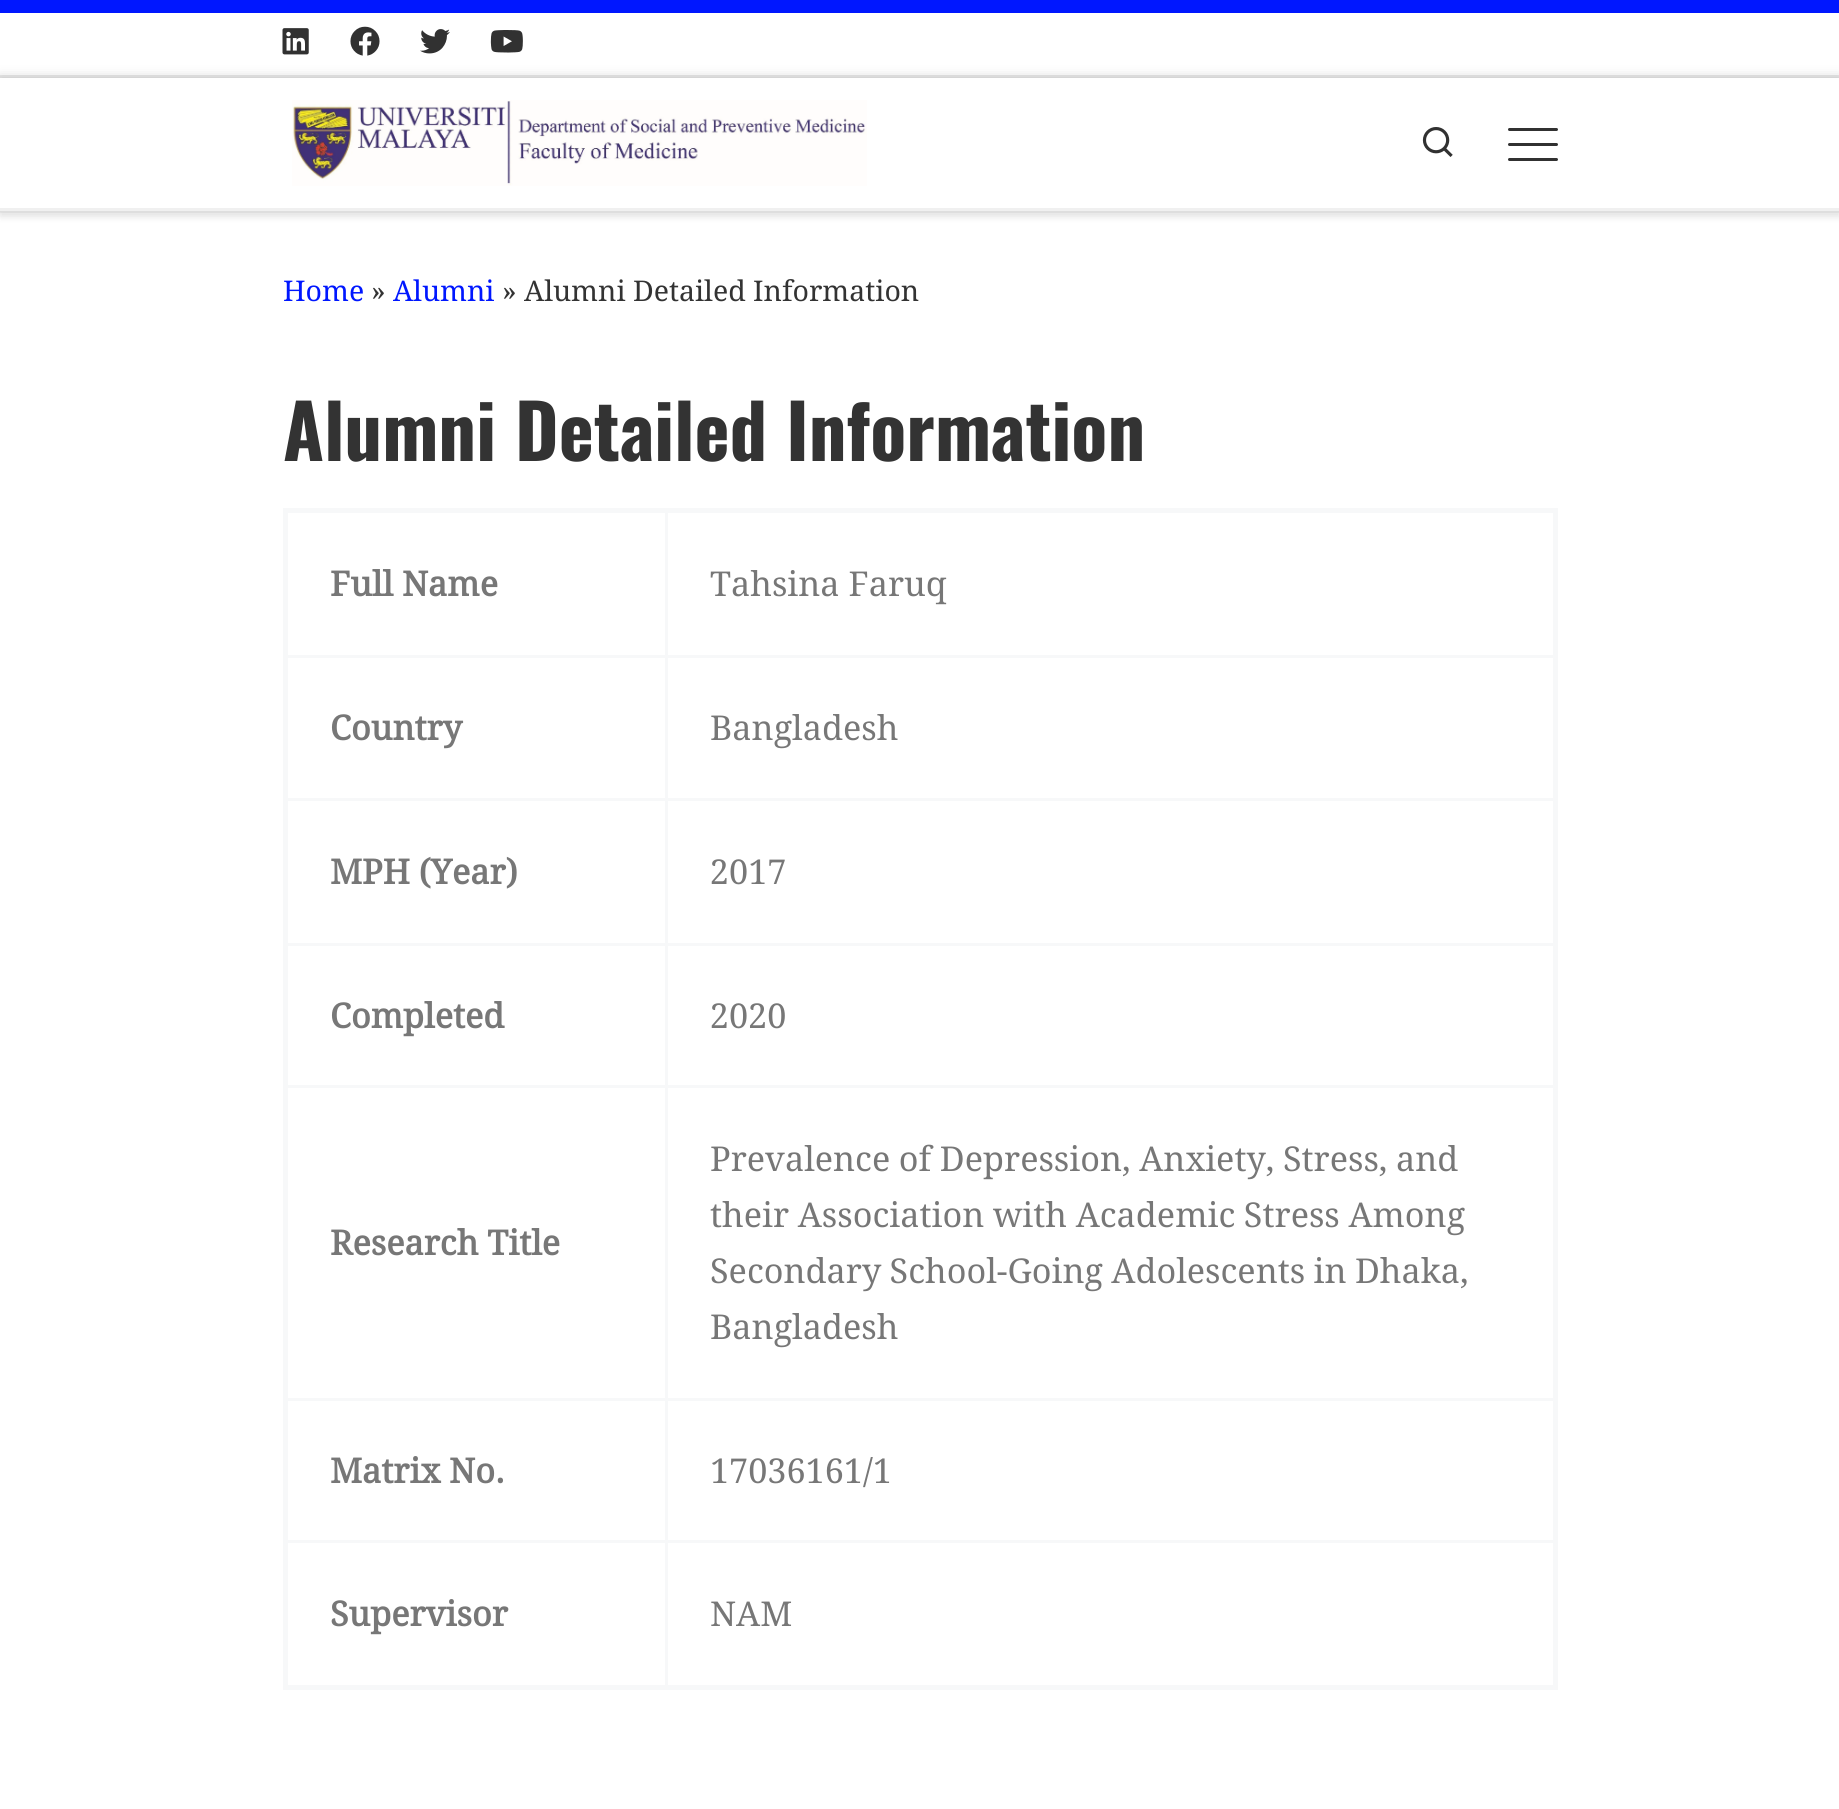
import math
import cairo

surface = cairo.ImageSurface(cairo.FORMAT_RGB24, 1839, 1809)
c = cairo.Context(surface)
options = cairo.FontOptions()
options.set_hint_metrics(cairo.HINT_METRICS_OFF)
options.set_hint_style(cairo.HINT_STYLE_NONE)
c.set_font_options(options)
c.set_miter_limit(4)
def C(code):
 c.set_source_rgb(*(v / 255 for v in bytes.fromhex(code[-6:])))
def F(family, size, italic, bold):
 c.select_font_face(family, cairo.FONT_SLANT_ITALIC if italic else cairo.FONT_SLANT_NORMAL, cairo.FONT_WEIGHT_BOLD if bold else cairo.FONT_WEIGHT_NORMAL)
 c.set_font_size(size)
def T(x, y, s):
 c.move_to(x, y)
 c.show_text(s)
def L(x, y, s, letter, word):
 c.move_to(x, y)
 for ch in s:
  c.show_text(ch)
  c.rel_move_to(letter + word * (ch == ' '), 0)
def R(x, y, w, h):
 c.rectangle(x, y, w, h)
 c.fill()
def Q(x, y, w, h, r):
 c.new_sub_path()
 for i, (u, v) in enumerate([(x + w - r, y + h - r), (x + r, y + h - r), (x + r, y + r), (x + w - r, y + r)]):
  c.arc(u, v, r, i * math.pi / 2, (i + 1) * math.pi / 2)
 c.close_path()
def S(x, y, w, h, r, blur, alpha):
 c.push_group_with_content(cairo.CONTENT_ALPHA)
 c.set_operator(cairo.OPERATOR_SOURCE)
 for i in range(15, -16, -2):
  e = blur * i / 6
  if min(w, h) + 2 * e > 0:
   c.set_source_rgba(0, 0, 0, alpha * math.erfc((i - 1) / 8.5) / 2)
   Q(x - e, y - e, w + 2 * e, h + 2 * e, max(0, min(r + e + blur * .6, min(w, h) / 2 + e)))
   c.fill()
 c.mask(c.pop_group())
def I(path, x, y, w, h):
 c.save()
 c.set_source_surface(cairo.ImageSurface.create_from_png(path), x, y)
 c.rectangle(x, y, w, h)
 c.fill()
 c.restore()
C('ffffff')
c.paint()
C('666666')
S(0,5,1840,213,0,2.5,.08)
C('ffffff')
R(0,13,1839,195)
C('0017ff')
R(0,0,1839,13)
C('ececec')
R(0,75,1839,3)
I('1.png',282,28,27,27)
I('2.png',350,26,30,30)
I('3.png',420,29,30,25)
I('4.png',490,30,33,23)
C('efefef')
R(0,211,1839,2)
c.save()
c.set_fill_rule(cairo.FILL_RULE_EVEN_ODD)
c.new_path()
c.move_to(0,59)
c.line_to(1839,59)
c.line_to(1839,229)
c.line_to(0,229)
c.close_path()
c.move_to(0,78)
c.line_to(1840,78)
c.line_to(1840,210)
c.line_to(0,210)
c.close_path()
c.clip()
C('000000')
S(0,78,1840,132,0,6,.2)
c.restore()
I('5.png',292,100,575,86)
I('6.png',1422,127,31,30)
C('313131')
Q(1508,128,50,3,1.5)
c.fill()
Q(1508,143,50,3,1.5)
c.fill()
Q(1508,158,50,3,1.5)
c.fill()
C('f0f0f0')
R(0,208,1839,3)
F('Droid Serif',28.5,0,0)
C('0017ff')
T(283,301,'Home')
C('333333')
T(371,301,'»')
C('0017ff')
T(393,301,'Alumni')
C('333333')
T(502,301,'» Alumni Detailed Information')
F('Oswald',74.6,0,1)
T(283,461,'Alumni Detailed Information')
C('f7f8f9')
R(665,655,893,3)
R(665,798,893,3)
R(665,943,893,3)
R(665,1085,893,3)
R(665,1398,893,3)
R(665,1540,893,3)
R(665,1540,3,148)
R(285,1540,383,3)
R(665,1398,3,145)
R(285,1398,383,3)
R(665,1085,3,315)
R(285,1085,383,3)
R(665,943,3,145)
R(285,943,383,3)
R(665,798,3,147)
R(285,798,383,3)
R(665,655,3,145)
R(285,655,383,3)
R(665,510,3,148)
R(283,508,1275,5)
R(1553,508,5,1182)
R(283,1685,1275,5)
R(283,508,5,1182)
F('Droid Serif',34.2,0,1)
C('777777')
T(330,596,'Full Name')
F('Droid Serif',34.2,0,0)
T(710,596,'Tahsina Faruq')
F('Droid Serif',34.2,0,1)
T(330,740,'Country')
F('Droid Serif',34.2,0,0)
T(710,740,'Bangladesh')
F('Droid Serif',34.2,0,1)
T(330,884,'MPH (Year)')
F('Droid Serif',34.2,0,0)
T(710,884,'2017')
F('Droid Serif',34.2,0,1)
T(330,1028,'Completed')
F('Droid Serif',34.2,0,0)
T(710,1028,'2020')
F('Droid Serif',34.2,0,1)
T(330,1255,'Research Title')
F('Droid Serif',34.2,0,0)
L(710,1171,'Prevalence of Depression, Anxiety, Stress, and',0,-.25)
L(710,1227,'their Association with Academic Stress Among',0,-.25)
L(710,1283,'Secondary School-Going Adolescents in Dhaka,',0,-.5)
T(710,1339,'Bangladesh')
F('Droid Serif',34.2,0,1)
T(330,1483,'Matrix No.')
F('Droid Serif',34.2,0,0)
T(710,1483,'17036161/1')
F('Droid Serif',34.2,0,1)
T(330,1626,'Supervisor')
F('Droid Serif',34.2,0,0)
T(710,1626,'NAM')
surface.write_to_png('o.png')
